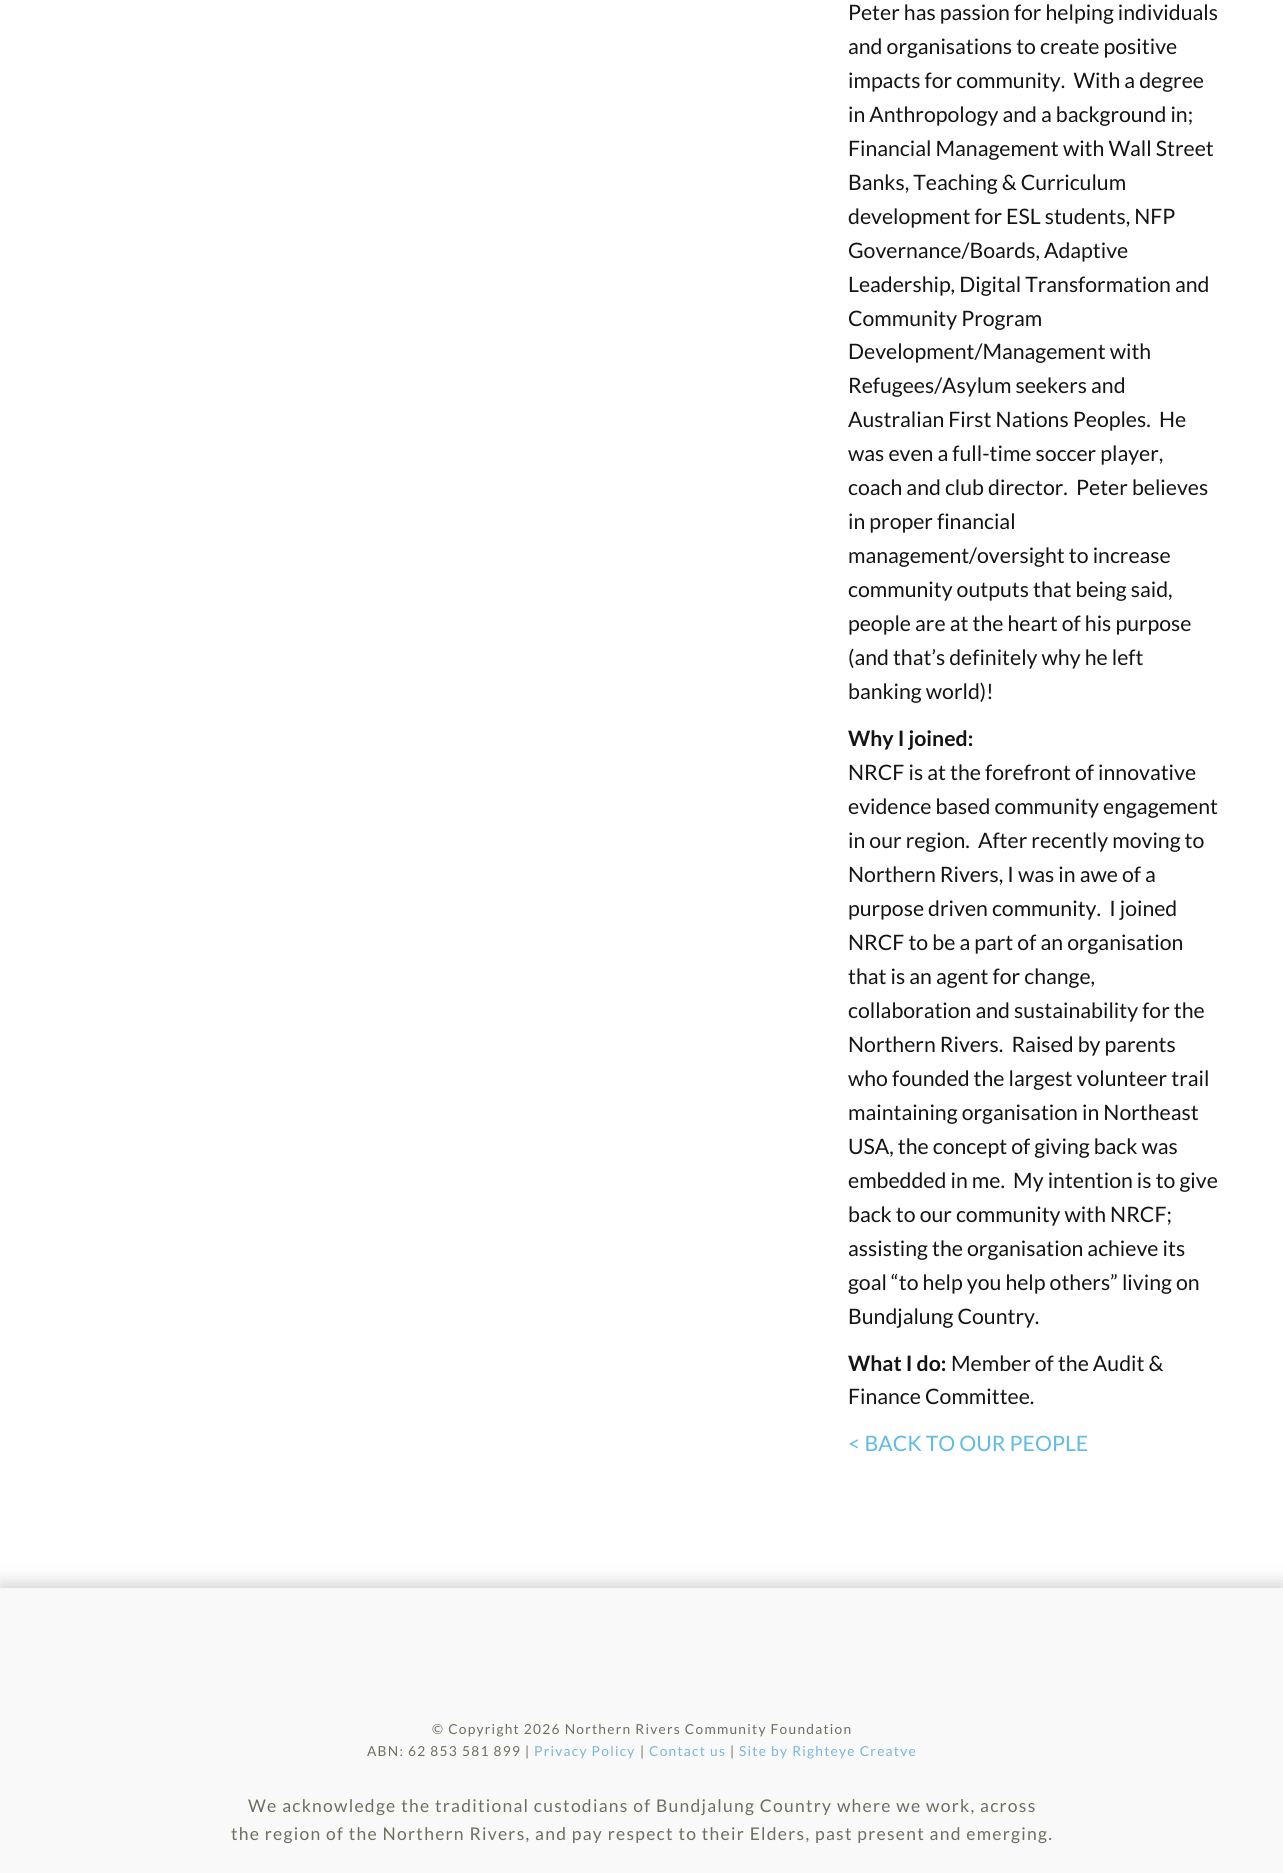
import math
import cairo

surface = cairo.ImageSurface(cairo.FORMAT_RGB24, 1283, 1873)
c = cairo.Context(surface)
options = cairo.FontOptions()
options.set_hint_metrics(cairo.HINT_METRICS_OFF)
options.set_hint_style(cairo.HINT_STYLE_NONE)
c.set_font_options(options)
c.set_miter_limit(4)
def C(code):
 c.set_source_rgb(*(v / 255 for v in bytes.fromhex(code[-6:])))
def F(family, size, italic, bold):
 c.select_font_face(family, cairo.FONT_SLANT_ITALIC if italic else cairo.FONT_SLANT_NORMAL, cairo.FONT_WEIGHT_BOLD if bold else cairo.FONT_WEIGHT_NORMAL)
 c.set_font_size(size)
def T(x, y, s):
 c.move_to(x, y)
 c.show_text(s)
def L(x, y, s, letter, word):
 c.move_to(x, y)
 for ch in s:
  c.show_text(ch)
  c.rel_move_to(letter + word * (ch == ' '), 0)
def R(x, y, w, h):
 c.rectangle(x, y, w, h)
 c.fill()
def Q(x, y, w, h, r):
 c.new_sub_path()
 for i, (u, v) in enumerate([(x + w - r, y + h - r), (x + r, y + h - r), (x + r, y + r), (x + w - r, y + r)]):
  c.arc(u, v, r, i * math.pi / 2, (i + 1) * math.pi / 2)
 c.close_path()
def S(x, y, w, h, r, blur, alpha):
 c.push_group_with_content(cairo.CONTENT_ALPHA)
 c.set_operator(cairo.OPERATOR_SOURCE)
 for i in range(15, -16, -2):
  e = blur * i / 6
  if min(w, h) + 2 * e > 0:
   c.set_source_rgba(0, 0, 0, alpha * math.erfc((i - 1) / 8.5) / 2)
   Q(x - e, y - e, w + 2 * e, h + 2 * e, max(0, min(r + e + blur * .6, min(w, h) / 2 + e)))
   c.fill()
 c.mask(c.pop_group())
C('ffffff')
c.paint()
F('Lato',21.25,0,0)
C('141414')
T(848,20,'Peter has passion for helping individuals')
T(848,54,'and organisations to create positive')
T(848,88,'impacts for community.  With a degree')
T(848,122,'in Anthropology and a background in;')
T(848,156,'Financial Management with Wall Street')
T(848,190,'Banks, Teaching & Curriculum')
T(848,224,'development for ESL students, NFP')
T(848,258,'Governance/Boards, Adaptive')
T(848,292,'Leadership, Digital Transformation and')
T(848,326,'Community Program')
T(848,359,'Development/Management with')
T(848,393,'Refugees/Asylum seekers and')
T(848,427,'Australian First Nations Peoples.  He')
T(848,461,'was even a full-time soccer player,')
T(848,495,'coach and club director.  Peter believes')
T(848,529,'in proper financial')
T(848,563,'management/oversight to increase')
T(848,597,'community outputs that being said,')
T(848,631,'people are at the heart of his purpose')
T(848,665,'(and that’s definitely why he left')
T(848,699,'banking world)!')
F('Lato',21.25,0,1)
T(848,746,'Why I joined:')
F('Lato',21.25,0,0)
T(848,780,'NRCF is at the forefront of innovative')
T(848,814,'evidence based community engagement')
T(848,848,'in our region.  After recently moving to')
T(848,882,'Northern Rivers, I was in awe of a')
T(848,916,'purpose driven community.  I joined')
T(848,950,'NRCF to be a part of an organisation')
T(848,984,'that is an agent for change,')
T(848,1018,'collaboration and sustainability for the')
T(848,1052,'Northern Rivers.  Raised by parents')
T(848,1086,'who founded the largest volunteer trail')
T(848,1120,'maintaining organisation in Northeast')
T(848,1154,'USA, the concept of giving back was')
T(848,1188,'embedded in me.  My intention is to give')
T(848,1222,'back to our community with NRCF;')
T(848,1256,'assisting the organisation achieve its')
T(848,1290,'goal “to help you help others” living on')
T(848,1324,'Bundjalung Country.')
F('Lato',21.25,0,1)
T(848,1371,'What I do:')
F('Lato',21.25,0,0)
T(951,1371,'Member of the Audit &')
T(848,1404,'Finance Committee.')
C('61bbe7')
T(848,1451,'< BACK TO OUR PEOPLE')
C('000000')
S(0,1584,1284,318,0,9.5,.18)
C('f9f9f9')
R(0,1588,1283,285)
F('Lato',13.75,0,0)
C('6d6f5d')
L(432,1734,'© Copyright 2026 Northern Rivers Community Foundation',1.25,0)
L(367,1756,'ABN: 62 853 581 899 |',1.25,0)
C('7ab5de')
L(534,1756,'Privacy Policy',1.25,0)
C('6d6f5d')
L(640,1756,'|',1.25,0)
C('7ab5de')
L(649,1756,'Contact us',1.25,0)
C('6d6f5d')
L(730,1756,'|',1.25,0)
C('7ab5de')
L(739,1756,'Site by Righteye Creatve',1.25,0)
F('Lato',17.5,0,0)
C('6d6f5d')
L(248,1812,'We acknowledge the traditional custodians of Bundjalung Country where we work, across',1.25,0)
L(231,1840,'the region of the Northern Rivers, and pay respect to their Elders, past present and emerging.',1.25,0)
surface.write_to_png('o.png')
